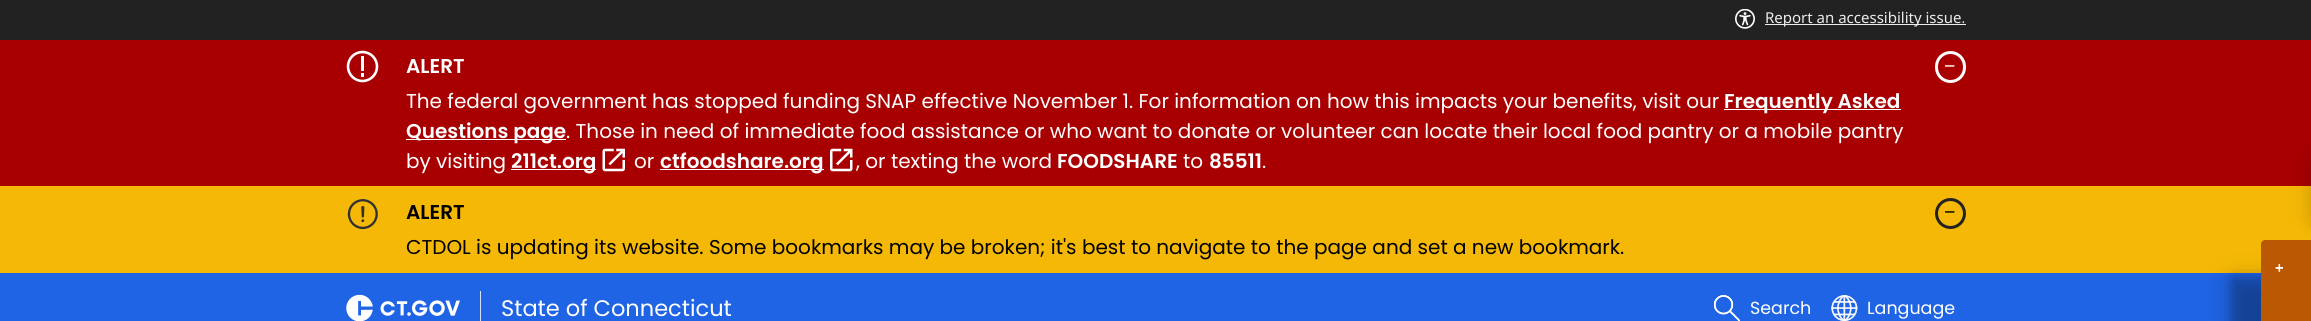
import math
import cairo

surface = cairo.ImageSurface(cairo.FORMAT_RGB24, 2311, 321)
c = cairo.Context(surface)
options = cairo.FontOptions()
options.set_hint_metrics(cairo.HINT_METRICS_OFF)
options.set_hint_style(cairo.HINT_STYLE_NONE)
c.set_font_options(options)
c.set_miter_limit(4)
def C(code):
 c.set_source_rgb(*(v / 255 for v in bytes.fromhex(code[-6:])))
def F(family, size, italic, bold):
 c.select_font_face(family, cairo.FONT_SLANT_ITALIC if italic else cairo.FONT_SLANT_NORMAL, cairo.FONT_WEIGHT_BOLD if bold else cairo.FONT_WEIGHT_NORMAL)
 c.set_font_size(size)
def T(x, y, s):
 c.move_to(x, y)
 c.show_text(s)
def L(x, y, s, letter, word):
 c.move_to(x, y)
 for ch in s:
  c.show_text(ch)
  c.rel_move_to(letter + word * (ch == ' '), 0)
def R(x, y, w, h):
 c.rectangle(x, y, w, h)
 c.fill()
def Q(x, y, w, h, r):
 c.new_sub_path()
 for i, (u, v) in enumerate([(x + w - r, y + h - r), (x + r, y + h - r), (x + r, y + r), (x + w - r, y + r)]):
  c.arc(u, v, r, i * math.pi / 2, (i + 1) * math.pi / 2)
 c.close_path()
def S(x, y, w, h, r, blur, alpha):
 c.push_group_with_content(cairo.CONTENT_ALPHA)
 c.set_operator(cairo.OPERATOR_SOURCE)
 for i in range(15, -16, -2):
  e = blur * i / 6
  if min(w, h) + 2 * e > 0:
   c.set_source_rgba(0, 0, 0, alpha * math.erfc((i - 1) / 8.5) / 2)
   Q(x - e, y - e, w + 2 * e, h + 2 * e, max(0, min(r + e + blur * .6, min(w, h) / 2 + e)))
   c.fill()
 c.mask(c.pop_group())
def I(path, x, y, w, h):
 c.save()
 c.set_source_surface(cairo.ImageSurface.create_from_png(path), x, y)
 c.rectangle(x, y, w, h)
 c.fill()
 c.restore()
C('a80001')
c.paint()
C('222222')
R(0,0,2311,40)
I('1.png',1735,9,20,20)
C('ececec')
R(1765,24,201,1)
F('Noto Sans',15,0,0)
T(1765,23,'Report an accessibility issue.')
c.new_path()
c.arc(362.5,66.5,14.5,0,2 * math.pi)
C('ffffff')
c.set_line_width(2.6)
c.stroke()
R(361,56,3,15)
R(361,73,3,4)
F('Poppins SemiBold',20,0,0)
T(406,73,'ALERT')
Q(1936.5,52.5,28,29,14)
c.set_line_width(3)
c.stroke()
F('Noto Sans',20,0,0)
T(1944,73,'−')
F('Poppins',20,0,0)
T(406,108,'The federal government has stopped funding SNAP effective November 1. For information on how this impacts your benefits, visit our')
R(1724,109,177,1)
F('Poppins SemiBold',20,0,0)
T(1724,108,'Frequently Asked')
R(406,139,160,1)
T(406,138,'Questions page')
F('Poppins',20,0,0)
T(566,138,'. Those in need of immediate food assistance or who want to donate or volunteer can locate their local food pantry or a mobile pantry')
T(406,168,'by visiting')
R(511,169,85,1)
F('Poppins SemiBold',20,0,0)
T(511,168,'211ct.org')
I('2.png',602,148,23,24)
F('Poppins',20,0,0)
T(634,168,'or')
R(660,169,164,1)
F('Poppins SemiBold',20,0,0)
T(660,168,'ctfoodshare.org')
I('3.png',830,148,23,24)
F('Poppins',20,0,0)
T(856,168,', or texting the word')
F('Poppins SemiBold',20,0,0)
T(1057,168,'FOODSHARE')
F('Poppins',20,0,0)
T(1183,168,'to')
F('Poppins SemiBold',20,0,0)
T(1209,168,'85511')
F('Poppins',20,0,0)
T(1262,168,'.')
C('f5b806')
R(0,186,2311,87)
I('4.png',347,199,31,31)
F('Poppins SemiBold',20,0,0)
C('000000')
T(406,219,'ALERT')
c.new_path()
c.arc(1950.5,213.5,14,0,2 * math.pi)
C('222222')
c.stroke()
F('Noto Sans',20,0,0)
C('000000')
T(1944,219,'−')
F('Poppins',20,0,0)
T(406,254,'CTDOL is updating its website. Some bookmarks may be broken; it\'s best to navigate to the page and set a new bookmark.')
C('1f64e5')
R(0,273,2261,48)
I('5.png',346,294,114,27)
C('d2e0fa')
R(480,291,1,30)
F('Poppins',22.5,0,0)
C('ffffff')
T(501,316,'State of Connecticut')
I('6.png',1714,295,26,26)
F('Poppins',17.5,0,0)
T(1750,314,'Search')
I('7.png',1831,295,27,26)
T(1867,314,'Language')
C('000000')
S(2311,160,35,63,5,10,.19)
S(2230,279,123,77,4,12.5,.19)
S(2230,276,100,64,4,5,.2)
C('ba5803')
c.new_path()
c.move_to(2261,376)
c.line_to(2261,244)
c.curve_to(2261,242,2263,240,2265,240)
c.line_to(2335,240)
c.curve_to(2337,240,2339,242,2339,244)
c.line_to(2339,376)
c.curve_to(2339,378,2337,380,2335,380)
c.line_to(2265,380)
c.curve_to(2263,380,2261,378,2261,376)
c.close_path()
c.fill()
F('Karla',15,0,1)
C('ffffff')
c.save()
c.translate(2283,272)
c.rotate(-90 * math.pi / 180)
L(0,0,'+',1,0)
c.restore()
surface.write_to_png('o.png')
